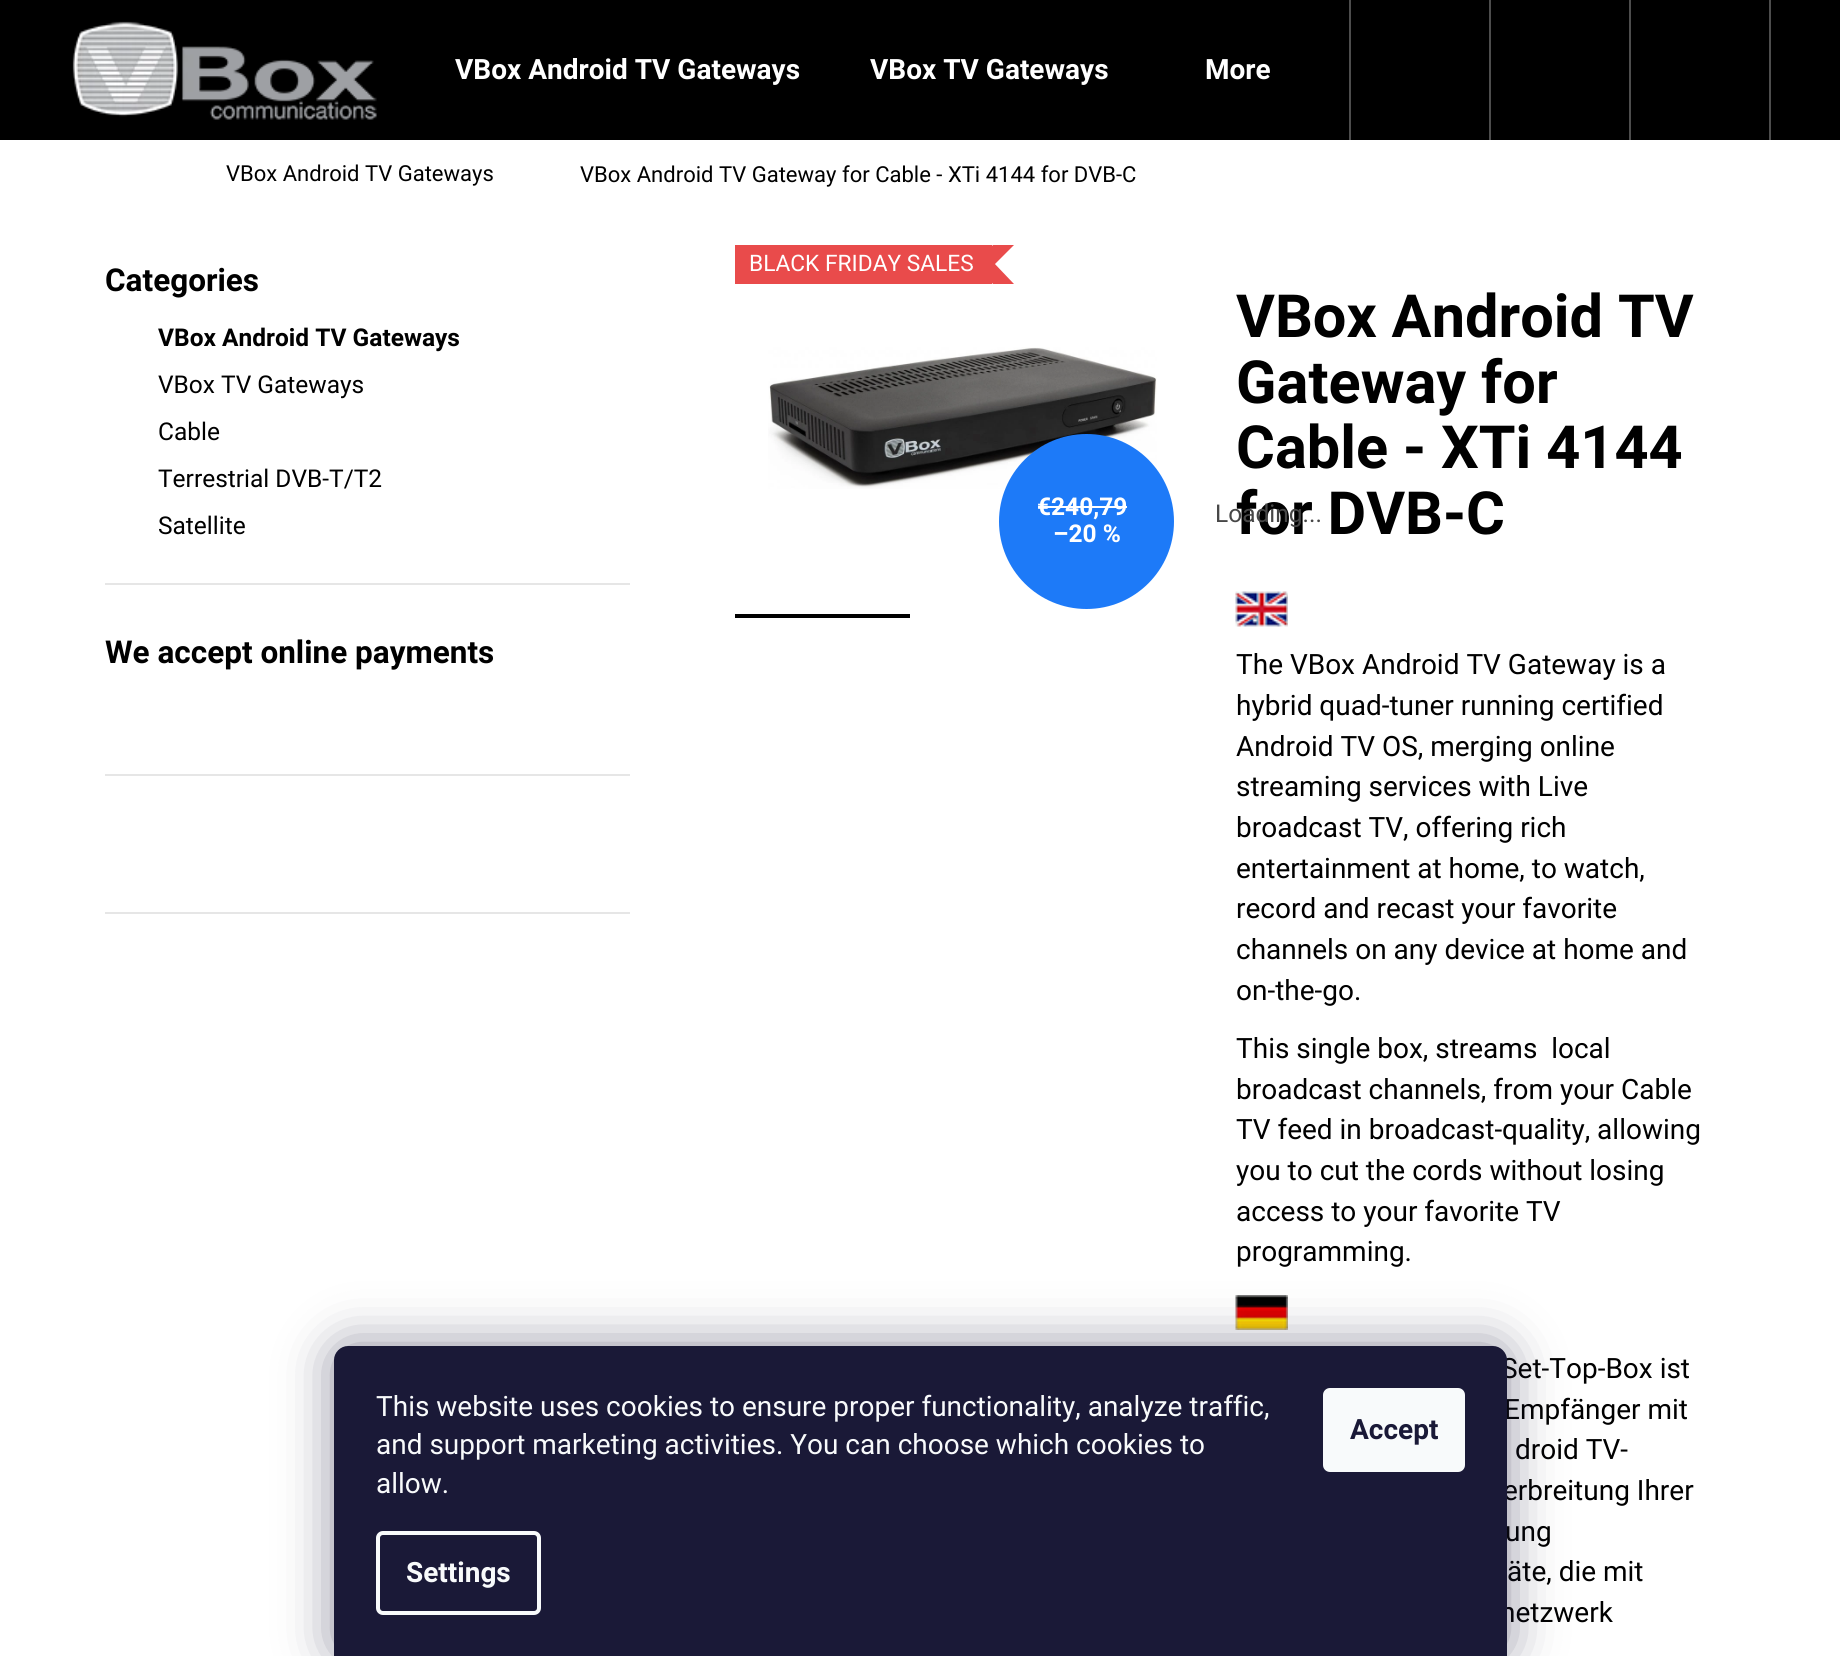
import math
import cairo

surface = cairo.ImageSurface(cairo.FORMAT_RGB24, 1840, 1656)
c = cairo.Context(surface)
options = cairo.FontOptions()
options.set_hint_metrics(cairo.HINT_METRICS_OFF)
options.set_hint_style(cairo.HINT_STYLE_NONE)
c.set_font_options(options)
c.set_miter_limit(4)
def C(code):
 c.set_source_rgb(*(v / 255 for v in bytes.fromhex(code[-6:])))
def F(family, size, italic, bold):
 c.select_font_face(family, cairo.FONT_SLANT_ITALIC if italic else cairo.FONT_SLANT_NORMAL, cairo.FONT_WEIGHT_BOLD if bold else cairo.FONT_WEIGHT_NORMAL)
 c.set_font_size(size)
def T(x, y, s):
 c.move_to(x, y)
 c.show_text(s)
def R(x, y, w, h):
 c.rectangle(x, y, w, h)
 c.fill()
def Q(x, y, w, h, r):
 c.new_sub_path()
 for i, (u, v) in enumerate([(x + w - r, y + h - r), (x + r, y + h - r), (x + r, y + r), (x + w - r, y + r)]):
  c.arc(u, v, r, i * math.pi / 2, (i + 1) * math.pi / 2)
 c.close_path()
def S(x, y, w, h, r, blur, alpha):
 c.push_group_with_content(cairo.CONTENT_ALPHA)
 c.set_operator(cairo.OPERATOR_SOURCE)
 for i in range(15, -16, -2):
  e = blur * i / 6
  if min(w, h) + 2 * e > 0:
   c.set_source_rgba(0, 0, 0, alpha * math.erfc((i - 1) / 8.5) / 2)
   Q(x - e, y - e, w + 2 * e, h + 2 * e, max(0, min(r + e + blur * .6, min(w, h) / 2 + e)))
   c.fill()
 c.mask(c.pop_group())
def I(path, x, y, w, h):
 c.save()
 c.set_source_surface(cairo.ImageSurface.create_from_png(path), x, y)
 c.rectangle(x, y, w, h)
 c.fill()
 c.restore()
C('ffffff')
c.paint()
C('000000')
R(0,0,1840,140)
I('1.png',72,21,305,99)
F('Roboto',28,0,1)
C('ffffff')
T(455,79,'VBox Android TV Gateways')
T(870,79,'VBox TV Gateways')
T(1205,79,'More')
C('4d4d4d')
R(1769,0,2,140)
R(1349,0,2,140)
R(1489,0,2,140)
R(1629,0,2,140)
F('Roboto',22.05,0,0)
C('000000')
T(226,181,'VBox Android TV Gateways')
T(580,182,'VBox Android TV Gateway for Cable - XTi 4144 for DVB-C')
F('Roboto',31.5,0,1)
T(105,291,'Categories')
F('Roboto',24.5,0,1)
T(158,346,'VBox Android TV Gateways')
F('Roboto',24.5,0,0)
T(158,393,'VBox TV Gateways')
T(158,440,'Cable')
T(158,487,'Terrestrial DVB-T/T2')
T(158,534,'Satellite')
C('e6e6e6')
R(105,583,525,2)
F('Roboto',31.5,0,1)
C('000000')
T(105,663,'We accept online payments')
C('e6e6e6')
R(105,774,525,2)
R(105,912,525,2)
C('e94b4b')
R(735,245,257,39)
F('Roboto',22.75,0,0)
C('ffffff')
T(749,271,'BLACK FRIDAY SALES')
C('e94b4b')
c.new_path()
c.move_to(972,262)
c.line_to(993,262)
c.line_to(1014,284)
c.line_to(993,284)
c.close_path()
c.fill()
c.new_path()
c.move_to(993,245)
c.line_to(1014,245)
c.line_to(993,266)
c.line_to(972,266)
c.close_path()
c.fill()
I('2.png',768,347,389,142)
C('1d7af8')
c.arc(1086.5,521.5,87.5,0,2 * math.pi)
c.fill()
F('Roboto',24.5,0,1)
C('ffffff')
T(1037,515,'€240,79')
R(1038,506,89,2)
T(1053,542,'–20 %')
F('Roboto',59.5,0,1)
C('000000')
T(1236,534,'for DVB-C')
F('Roboto',24.5,0,0)
C('474747')
T(1215,522,'Loading...')
C('000000')
R(735,614,175,4)
F('Roboto',59.5,0,1)
T(1236,337,'VBox Android TV')
T(1236,403,'Gateway for')
T(1236,468,'Cable - XTi 4144')
I('3.png',1235,591,53,36)
F('Roboto',28,0,0)
T(1236,674,'The VBox Android TV Gateway is a')
T(1236,715,'hybrid quad-tuner running certified')
T(1236,756,'Android TV OS, merging online')
T(1236,796,'streaming services with Live')
T(1236,837,'broadcast TV, offering rich')
T(1236,878,'entertainment at home, to watch,')
T(1236,918,'record and recast your favorite')
T(1236,959,'channels on any device at home and')
T(1236,1000,'on-the-go.')
T(1236,1058,'This single box, streams  local')
T(1236,1099,'broadcast channels, from your Cable')
T(1236,1139,'TV feed in broadcast-quality, allowing')
T(1236,1180,'you to cut the cords without losing')
T(1236,1221,'access to your favorite TV')
T(1236,1261,'programming.')
I('4.png',1235,1295,53,35)
T(1501,1378,'Set-Top-Box ist')
T(1504,1419,'Empfänger mit')
T(1515,1459,'droid TV-')
T(1503,1500,'erbreitung Ihrer')
T(1505,1541,'ung')
T(1507,1581,'äte, die mit')
T(1500,1622,'netzwerk')
C('1b1939')
S(334,1346,1173,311,14,26,.5)
C('1a1937')
c.new_path()
c.move_to(348,1346)
c.line_to(1493,1346)
c.curve_to(1500.5,1346,1507,1352.5,1507,1360)
c.line_to(1507,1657)
c.line_to(334,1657)
c.line_to(334,1360)
c.curve_to(334,1352.5,340.5,1346,348,1346)
c.close_path()
c.fill()
C('f8fafb')
T(376,1416,'This website uses cookies to ensure proper functionality, analyze traffic,')
T(376,1454,'and support marketing activities. You can choose which cookies to')
T(376,1493,'allow.')
Q(378,1533,161,80,5)
c.set_line_width(4)
c.stroke()
F('Roboto',28,0,1)
T(406,1582,'Settings')
Q(1323,1388,142,84,7)
c.fill()
C('1a1937')
T(1350,1439,'Accept')
surface.write_to_png('o.png')
